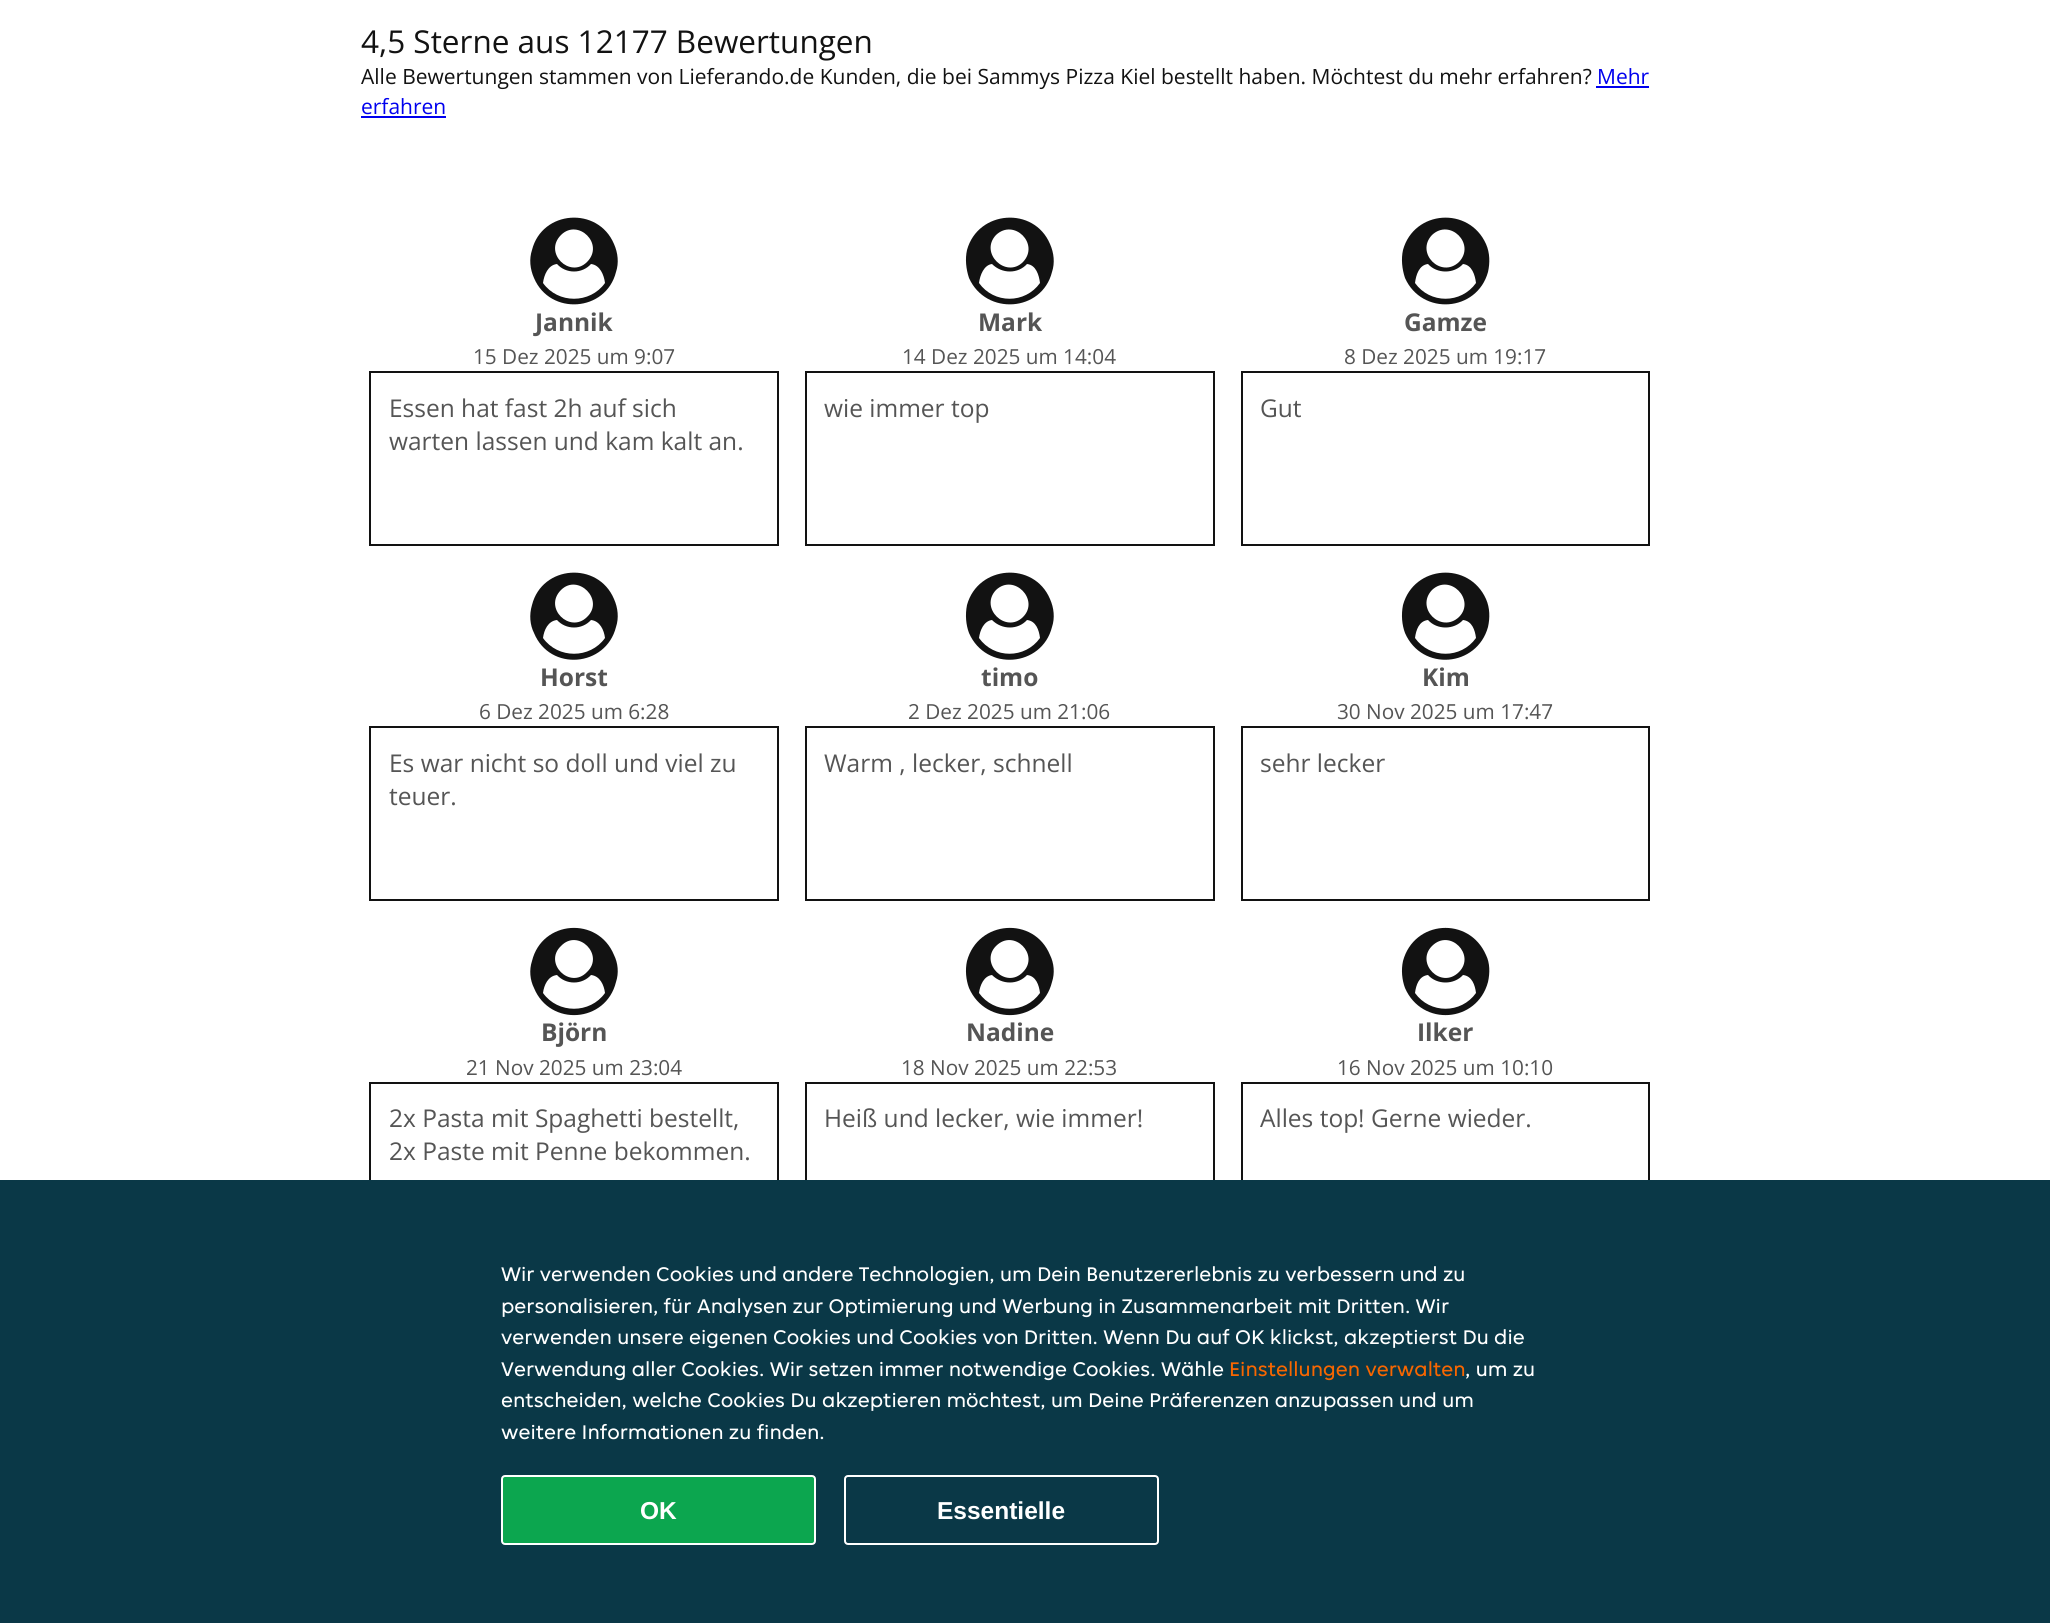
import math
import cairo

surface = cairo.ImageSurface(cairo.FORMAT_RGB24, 2050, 1623)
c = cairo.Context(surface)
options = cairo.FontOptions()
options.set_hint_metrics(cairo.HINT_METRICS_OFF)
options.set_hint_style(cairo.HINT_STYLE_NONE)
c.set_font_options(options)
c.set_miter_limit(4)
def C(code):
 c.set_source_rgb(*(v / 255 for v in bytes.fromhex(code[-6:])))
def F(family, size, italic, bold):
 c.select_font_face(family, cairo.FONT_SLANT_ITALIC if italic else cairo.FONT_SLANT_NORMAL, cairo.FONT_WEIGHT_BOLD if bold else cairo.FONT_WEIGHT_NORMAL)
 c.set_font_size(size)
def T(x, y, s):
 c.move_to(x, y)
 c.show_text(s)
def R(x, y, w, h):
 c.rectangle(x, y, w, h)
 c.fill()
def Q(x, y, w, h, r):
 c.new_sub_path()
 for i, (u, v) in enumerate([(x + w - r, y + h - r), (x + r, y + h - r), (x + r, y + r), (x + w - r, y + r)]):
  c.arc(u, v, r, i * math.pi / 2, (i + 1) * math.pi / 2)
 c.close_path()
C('ffffff')
c.paint()
F('Open Sans',31.5,0,0)
C('121212')
T(361,53,'4,5 Sterne aus 12177 Bewertungen')
F('Open Sans',21,0,0)
T(361,84,'Alle Bewertungen stammen von Lieferando.de Kunden, die bei Sammys Pizza Kiel bestellt haben. Möchtest du mehr erfahren?')
C('0000ee')
T(1597,84,'Mehr')
R(1596,86,53,2)
T(361,114,'erfahren')
R(361,116,85,2)
C('121212')
c.new_path()
c.move_to(605,283)
c.curve_to(604,275,600,265,591,264)
c.curve_to(582,274,566,274,557,264)
c.curve_to(548,265,544,275,543,283)
c.curve_to(558,304,590,304,605,283)
c.close_path()
c.move_to(587,262)
c.curve_to(605,244,578,218,561,235)
c.curve_to(543,253,570,279,587,262)
c.close_path()
c.move_to(614,244)
c.curve_to(618,253,619,263,616,272)
c.curve_to(606,312,550,316,534,278)
c.curve_to(530,269,529,259,532,250)
c.curve_to(542,210,598,206,614,244)
c.close_path()
c.fill()
F('Open Sans',24.5,0,1)
C('555555')
T(535,331,'Jannik')
F('Open Sans',20.75,0,0)
T(473,364,'15 Dez 2025 um 9:07')
c.rectangle(370,372,408,173)
C('121212')
c.stroke()
F('Open Sans',24.5,0,0)
C('555555')
T(389,417,'Essen hat fast 2h auf sich')
T(389,450,'warten lassen und kam kalt an.')
C('121212')
c.new_path()
c.move_to(1040,283)
c.curve_to(1039,275,1036,265,1027,264)
c.curve_to(1018,274,1002,274,992,264)
c.curve_to(984,265,980,275,979,283)
c.curve_to(994,304,1025,304,1040,283)
c.close_path()
c.move_to(1023,262)
c.curve_to(1040,244,1014,218,996,235)
c.curve_to(979,253,1006,279,1023,262)
c.close_path()
c.move_to(1050,244)
c.curve_to(1054,253,1055,263,1052,272)
c.curve_to(1042,312,986,316,969,278)
c.curve_to(966,269,965,259,967,250)
c.curve_to(978,210,1034,206,1050,244)
c.close_path()
c.fill()
F('Open Sans',24.5,0,1)
C('555555')
T(978,331,'Mark')
F('Open Sans',20.75,0,0)
T(902,364,'14 Dez 2025 um 14:04')
c.rectangle(806,372,408,173)
C('121212')
c.stroke()
F('Open Sans',24.5,0,0)
C('555555')
T(824,417,'wie immer top')
C('121212')
c.new_path()
c.move_to(1476,283)
c.curve_to(1475,275,1472,265,1463,264)
c.curve_to(1454,274,1437,274,1428,264)
c.curve_to(1419,265,1416,275,1415,283)
c.curve_to(1430,304,1461,304,1476,283)
c.close_path()
c.move_to(1459,262)
c.curve_to(1476,244,1450,218,1432,235)
c.curve_to(1415,253,1441,279,1459,262)
c.close_path()
c.move_to(1486,244)
c.curve_to(1490,253,1490,263,1488,272)
c.curve_to(1477,312,1422,316,1405,278)
c.curve_to(1402,269,1401,259,1403,250)
c.curve_to(1414,210,1469,206,1486,244)
c.close_path()
c.fill()
F('Open Sans',24.5,0,1)
C('555555')
T(1404,331,'Gamze')
F('Open Sans',20.75,0,0)
T(1344,364,'8 Dez 2025 um 19:17')
c.rectangle(1242,372,407,173)
C('121212')
c.stroke()
F('Open Sans',24.5,0,0)
C('555555')
T(1260,417,'Gut')
C('121212')
c.new_path()
c.move_to(605,638)
c.curve_to(604,630,600,621,591,620)
c.curve_to(582,630,566,630,557,620)
c.curve_to(548,621,544,630,543,638)
c.curve_to(558,659,590,659,605,638)
c.close_path()
c.move_to(587,617)
c.curve_to(605,600,578,573,561,590)
c.curve_to(543,608,570,634,587,617)
c.close_path()
c.move_to(614,599)
c.curve_to(618,608,619,618,616,627)
c.curve_to(606,667,550,672,534,633)
c.curve_to(530,625,529,615,532,605)
c.curve_to(542,565,598,561,614,599)
c.close_path()
c.fill()
F('Open Sans',24.5,0,1)
C('555555')
T(540,686,'Horst')
F('Open Sans',20.75,0,0)
T(479,719,'6 Dez 2025 um 6:28')
c.rectangle(370,727,408,173)
C('121212')
c.stroke()
F('Open Sans',24.5,0,0)
C('555555')
T(389,772,'Es war nicht so doll und viel zu')
T(389,805,'teuer.')
C('121212')
c.new_path()
c.move_to(1040,638)
c.curve_to(1039,630,1036,621,1027,620)
c.curve_to(1018,630,1002,630,992,620)
c.curve_to(984,621,980,630,979,638)
c.curve_to(994,659,1025,659,1040,638)
c.close_path()
c.move_to(1023,617)
c.curve_to(1040,600,1014,573,996,590)
c.curve_to(979,608,1006,634,1023,617)
c.close_path()
c.move_to(1050,599)
c.curve_to(1054,608,1055,618,1052,627)
c.curve_to(1042,667,986,672,969,633)
c.curve_to(966,625,965,615,967,605)
c.curve_to(978,565,1034,561,1050,599)
c.close_path()
c.fill()
F('Open Sans',24.5,0,1)
C('555555')
T(981,686,'timo')
F('Open Sans',20.75,0,0)
T(908,719,'2 Dez 2025 um 21:06')
c.rectangle(806,727,408,173)
C('121212')
c.stroke()
F('Open Sans',24.5,0,0)
C('555555')
T(824,772,'Warm , lecker, schnell')
C('121212')
c.new_path()
c.move_to(1476,638)
c.curve_to(1475,630,1472,621,1463,620)
c.curve_to(1454,630,1437,630,1428,620)
c.curve_to(1419,621,1416,630,1415,638)
c.curve_to(1430,659,1461,659,1476,638)
c.close_path()
c.move_to(1459,617)
c.curve_to(1476,600,1450,573,1432,590)
c.curve_to(1415,608,1441,634,1459,617)
c.close_path()
c.move_to(1486,599)
c.curve_to(1490,608,1490,618,1488,627)
c.curve_to(1477,667,1422,672,1405,633)
c.curve_to(1402,625,1401,615,1403,605)
c.curve_to(1414,565,1469,561,1486,599)
c.close_path()
c.fill()
F('Open Sans',24.5,0,1)
C('555555')
T(1422,686,'Kim')
F('Open Sans',20.75,0,0)
T(1337,719,'30 Nov 2025 um 17:47')
c.rectangle(1242,727,407,173)
C('121212')
c.stroke()
F('Open Sans',24.5,0,0)
C('555555')
T(1260,772,'sehr lecker')
C('121212')
c.new_path()
c.move_to(605,993)
c.curve_to(604,985,600,976,591,975)
c.curve_to(582,985,566,985,557,975)
c.curve_to(548,976,544,985,543,993)
c.curve_to(558,1014,590,1014,605,993)
c.close_path()
c.move_to(587,972)
c.curve_to(605,955,578,928,561,946)
c.curve_to(543,963,570,990,587,972)
c.close_path()
c.move_to(614,955)
c.curve_to(618,963,619,973,616,982)
c.curve_to(606,1023,550,1027,534,988)
c.curve_to(530,980,529,970,532,961)
c.curve_to(542,920,598,916,614,955)
c.close_path()
c.fill()
F('Open Sans',24.5,0,1)
C('555555')
T(541,1041,'Björn')
F('Open Sans',20.75,0,0)
T(466,1075,'21 Nov 2025 um 23:04')
c.rectangle(370,1083,408,173)
C('121212')
c.stroke()
F('Open Sans',24.5,0,0)
C('555555')
T(389,1127,'2x Pasta mit Spaghetti bestellt,')
T(389,1160,'2x Paste mit Penne bekommen.')
C('121212')
c.new_path()
c.move_to(1040,993)
c.curve_to(1039,985,1036,976,1027,975)
c.curve_to(1018,985,1002,985,992,975)
c.curve_to(984,976,980,985,979,993)
c.curve_to(994,1014,1025,1014,1040,993)
c.close_path()
c.move_to(1023,972)
c.curve_to(1040,955,1014,928,996,946)
c.curve_to(979,963,1006,990,1023,972)
c.close_path()
c.move_to(1050,955)
c.curve_to(1054,963,1055,973,1052,982)
c.curve_to(1042,1023,986,1027,969,988)
c.curve_to(966,980,965,970,967,961)
c.curve_to(978,920,1034,916,1050,955)
c.close_path()
c.fill()
F('Open Sans',24.5,0,1)
C('555555')
T(966,1041,'Nadine')
F('Open Sans',20.75,0,0)
T(901,1075,'18 Nov 2025 um 22:53')
c.rectangle(806,1083,408,173)
C('121212')
c.stroke()
F('Open Sans',24.5,0,0)
C('555555')
T(824,1127,'Heiß und lecker, wie immer!')
C('121212')
c.new_path()
c.move_to(1476,993)
c.curve_to(1475,985,1472,976,1463,975)
c.curve_to(1454,985,1437,985,1428,975)
c.curve_to(1419,976,1416,985,1415,993)
c.curve_to(1430,1014,1461,1014,1476,993)
c.close_path()
c.move_to(1459,972)
c.curve_to(1476,955,1450,928,1432,946)
c.curve_to(1415,963,1441,990,1459,972)
c.close_path()
c.move_to(1486,955)
c.curve_to(1490,963,1490,973,1488,982)
c.curve_to(1477,1023,1422,1027,1405,988)
c.curve_to(1402,980,1401,970,1403,961)
c.curve_to(1414,920,1469,916,1486,955)
c.close_path()
c.fill()
F('Open Sans',24.5,0,1)
C('555555')
T(1417,1041,'Ilker')
F('Open Sans',20.75,0,0)
T(1337,1075,'16 Nov 2025 um 10:10')
c.rectangle(1242,1083,407,173)
C('121212')
c.stroke()
F('Open Sans',24.5,0,0)
C('555555')
T(1260,1127,'Alles top! Gerne wieder.')
C('0a3847')
R(0,1180,2050,443)
F('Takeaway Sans',21,0,0)
C('ffffff')
T(501,1281,'Wir verwenden Cookies und andere Technologien, um Dein Benutzererlebnis zu verbessern und zu')
T(501,1313,'personalisieren, für Analysen zur Optimierung und Werbung in Zusammenarbeit mit Dritten. Wir')
T(501,1344,'verwenden unsere eigenen Cookies und Cookies von Dritten. Wenn Du auf OK klickst, akzeptierst Du die')
T(501,1376,'Verwendung aller Cookies. Wir setzen immer notwendige Cookies. Wähle')
C('f86600')
T(1229,1376,'Einstellungen verwalten')
C('ffffff')
T(1465,1376,', um zu')
T(501,1407,'entscheiden, welche Cookies Du akzeptieren möchtest, um Deine Präferenzen anzupassen und um')
T(501,1439,'weitere Informationen zu finden.')
C('0ca64f')
Q(502,1476,313,68,3)
c.fill_preserve()
C('ffffff')
c.stroke()
F('Liberation Sans',24.5,0,1)
T(640,1519,'OK')
Q(845,1476,313,68,3)
c.stroke()
T(937,1519,'Essentielle')
surface.write_to_png('o.png')
